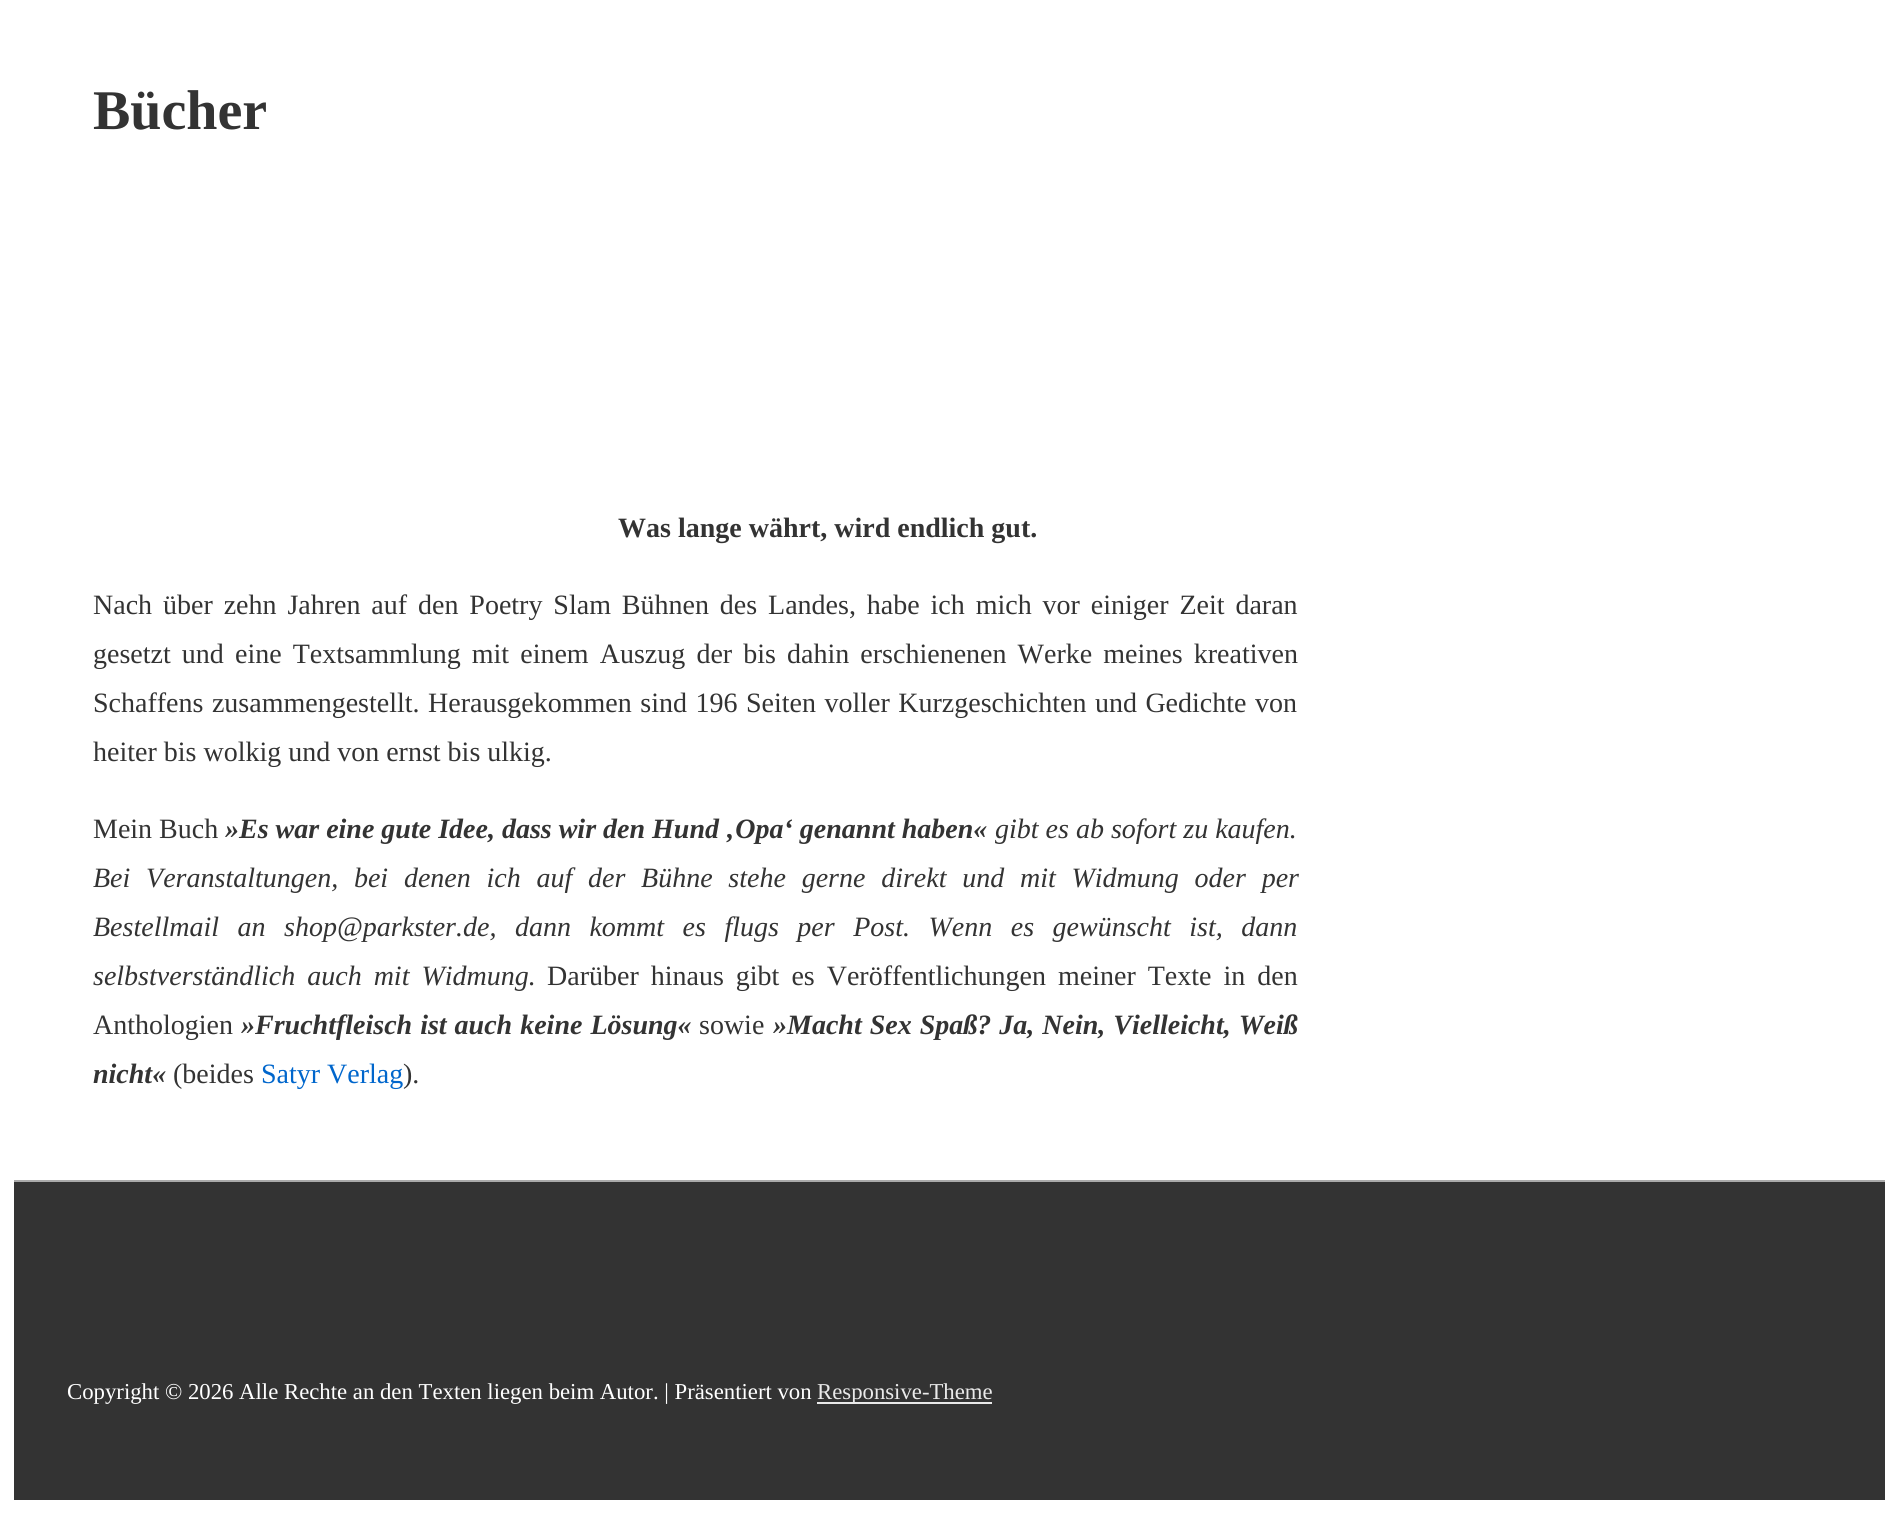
import math
import cairo

surface = cairo.ImageSurface(cairo.FORMAT_RGB24, 1898, 1514)
c = cairo.Context(surface)
options = cairo.FontOptions()
options.set_hint_metrics(cairo.HINT_METRICS_OFF)
options.set_hint_style(cairo.HINT_STYLE_NONE)
c.set_font_options(options)
c.set_miter_limit(4)
def C(code):
 c.set_source_rgb(*(v / 255 for v in bytes.fromhex(code[-6:])))
def F(family, size, italic, bold):
 c.select_font_face(family, cairo.FONT_SLANT_ITALIC if italic else cairo.FONT_SLANT_NORMAL, cairo.FONT_WEIGHT_BOLD if bold else cairo.FONT_WEIGHT_NORMAL)
 c.set_font_size(size)
def T(x, y, s):
 c.move_to(x, y)
 c.show_text(s)
def L(x, y, s, letter, word):
 c.move_to(x, y)
 for ch in s:
  c.show_text(ch)
  c.rel_move_to(letter + word * (ch == ' '), 0)
def R(x, y, w, h):
 c.rectangle(x, y, w, h)
 c.fill()
C('ffffff')
c.paint()
F('Liberation Serif',56,0,1)
C('333333')
T(93,129,'Bücher')
F('Liberation Serif',28,0,1)
T(618,537,'Was lange währt, wird endlich gut.')
F('Liberation Serif',28,0,0)
L(93,614,'Nach über zehn Jahren auf den Poetry Slam Bühnen des Landes, habe ich mich vor einiger Zeit daran',0,3.9)
L(93,663,'gesetzt und eine Textsammlung mit einem Auszug der bis dahin erschienenen Werke meines kreativen',0,4.1)
L(93,712,'Schaffens zusammengestellt. Herausgekommen sind 196 Seiten voller Kurzgeschichten und Gedichte von',0,1.5)
T(93,761,'heiter bis wolkig und von ernst bis ulkig.')
T(93,838,'Mein Buch')
F('Liberation Serif',28,1,1)
T(225,838,'»Es war eine gute Idee, dass wir den Hund ‚Opa‘ genannt haben«')
F('Liberation Serif',28,1,0)
T(995,838,'gibt es ab sofort zu kaufen.')
L(93,887,'Bei Veranstaltungen, bei denen ich auf der Bühne stehe gerne direkt und mit Widmung oder per',0,8.75)
L(93,936,'Bestellmail an shop@parkster.de, dann kommt es flugs per Post. Wenn es gewünscht ist, dann',0,11.5)
L(93,985,'selbstverständlich auch mit Widmung.',0,5)
F('Liberation Serif',28,0,0)
L(547,985,'Darüber hinaus gibt es Veröffentlichungen meiner Texte in den',0,5)
T(93,1034,'Anthologien')
F('Liberation Serif',28,1,1)
T(241,1034,'»')
L(255,1034,'Fruchtfleisch ist auch keine Lösung«',0,1)
F('Liberation Serif',28,0,0)
T(699,1034,'sowie')
F('Liberation Serif',28,1,1)
T(773,1034,'»')
L(787,1034,'Macht Sex Spaß? Ja, Nein, Vielleicht, Weiß',0,1)
T(93,1083,'nicht«')
F('Liberation Serif',28,0,0)
T(173,1083,'(beides')
C('0066cc')
T(261,1083,'Satyr Verlag')
C('333333')
T(403,1083,').')
R(14,1182,1871,318)
C('aaaaaa')
R(14,1180,1871,2)
F('Liberation Serif',22.75,0,0)
C('ffffff')
T(67,1399,'Copyright © 2026 Alle Rechte an den Texten liegen beim Autor. | Präsentiert von')
C('eaeaea')
R(817,1402,175,2)
T(817,1399,'Responsive-Theme')
surface.write_to_png('o.png')
